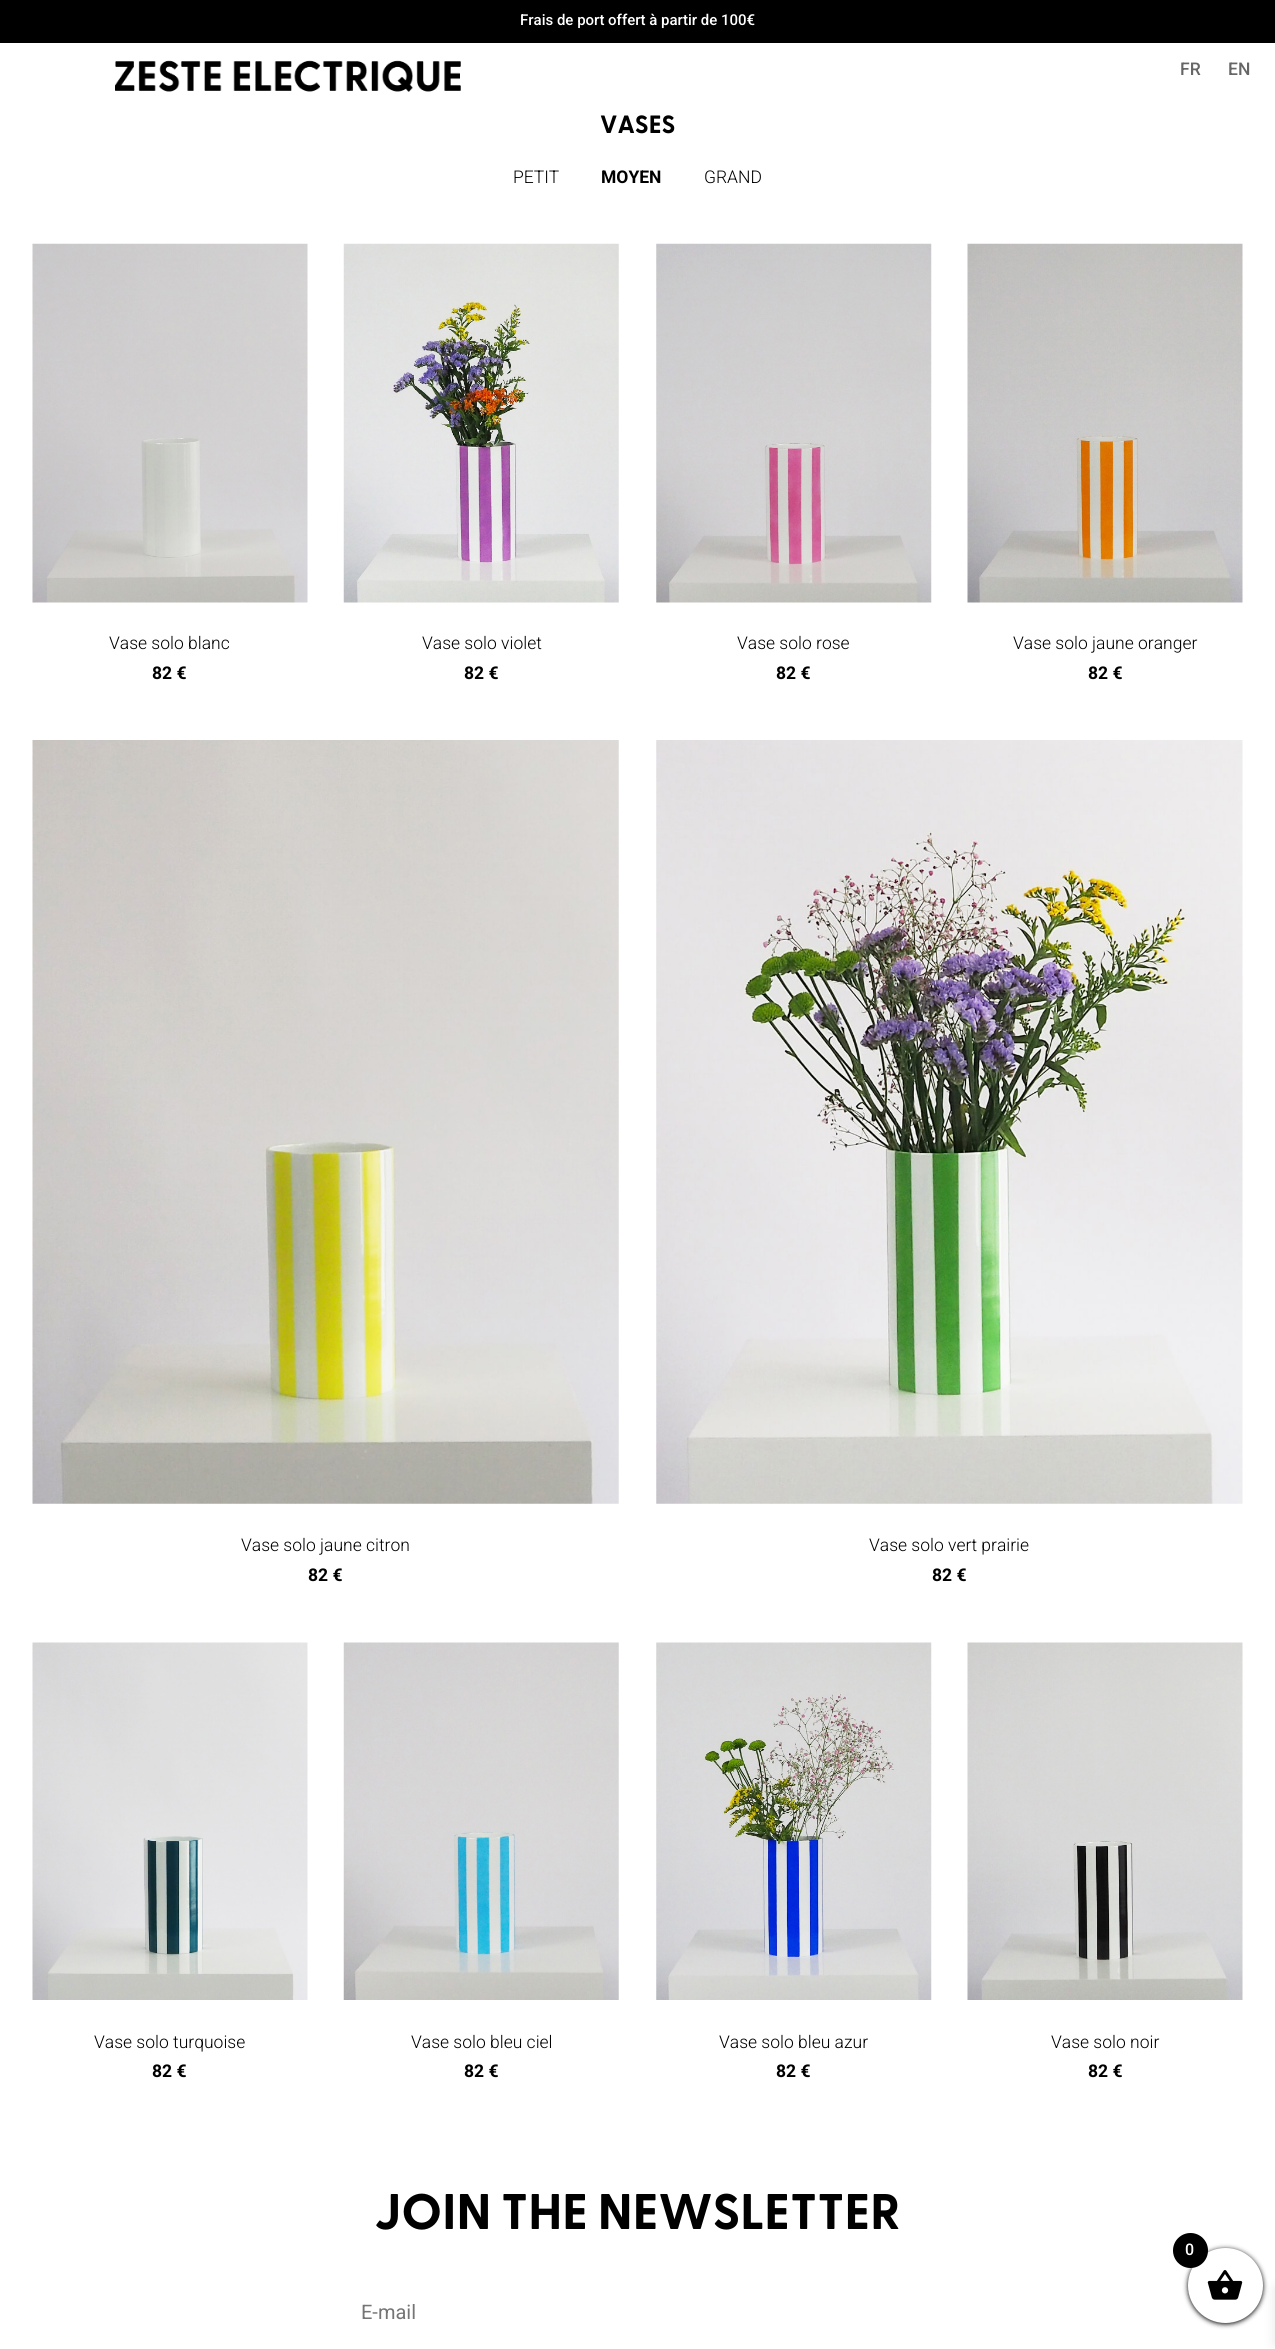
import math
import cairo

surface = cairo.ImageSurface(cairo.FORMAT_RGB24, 1275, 2349)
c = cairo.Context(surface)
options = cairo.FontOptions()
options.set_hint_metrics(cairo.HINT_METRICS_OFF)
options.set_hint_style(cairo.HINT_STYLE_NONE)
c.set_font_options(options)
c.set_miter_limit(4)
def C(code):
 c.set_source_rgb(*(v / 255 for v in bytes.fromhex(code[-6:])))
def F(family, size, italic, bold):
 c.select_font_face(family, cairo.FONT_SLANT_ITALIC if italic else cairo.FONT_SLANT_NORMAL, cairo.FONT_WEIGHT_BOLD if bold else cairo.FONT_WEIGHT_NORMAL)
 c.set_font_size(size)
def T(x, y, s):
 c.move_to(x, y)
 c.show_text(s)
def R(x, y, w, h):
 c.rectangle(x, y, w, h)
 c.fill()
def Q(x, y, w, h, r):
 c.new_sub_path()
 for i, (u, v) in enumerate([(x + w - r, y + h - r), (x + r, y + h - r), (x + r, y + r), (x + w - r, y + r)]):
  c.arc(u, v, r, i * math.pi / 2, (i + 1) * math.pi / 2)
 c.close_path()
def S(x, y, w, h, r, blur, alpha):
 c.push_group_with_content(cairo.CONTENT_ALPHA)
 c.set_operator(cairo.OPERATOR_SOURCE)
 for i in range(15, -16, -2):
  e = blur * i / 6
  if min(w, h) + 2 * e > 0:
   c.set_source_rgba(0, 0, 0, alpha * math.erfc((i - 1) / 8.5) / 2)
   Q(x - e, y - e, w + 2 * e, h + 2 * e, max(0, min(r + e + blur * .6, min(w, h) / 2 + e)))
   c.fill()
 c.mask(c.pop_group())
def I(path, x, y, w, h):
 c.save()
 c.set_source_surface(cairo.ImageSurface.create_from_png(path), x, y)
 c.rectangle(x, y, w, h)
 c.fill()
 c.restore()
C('ffffff')
c.paint()
C('000000')
R(0,0,1275,43)
F('Roboto Medium',15,0,0)
C('ffffff')
T(520,25,'Frais de port offert à partir de 100€')
I('1.png',115,60,346,32)
F('Roboto Medium',17.5,0,0)
C('666666')
T(1180,75,'FR')
T(1228,75,'EN')
F('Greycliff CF',25,0,1)
C('000000')
T(600,133,'VASES')
F('Roboto Light',17.5,0,0)
T(513,183,'PETIT')
F('Roboto',17.5,0,1)
T(601,183,'MOYEN')
F('Roboto Light',17.5,0,0)
T(704,183,'GRAND')
I('2.png',32,243,276,360)
T(109,649,'Vase solo blanc')
F('Roboto',17.5,0,1)
T(152,679,'82 €')
I('3.png',343,243,276,360)
F('Roboto Light',17.5,0,0)
T(422,649,'Vase solo violet')
F('Roboto',17.5,0,1)
T(464,679,'82 €')
I('4.png',656,243,276,360)
F('Roboto Light',17.5,0,0)
T(737,649,'Vase solo rose')
F('Roboto',17.5,0,1)
T(776,679,'82 €')
I('5.png',967,243,276,360)
F('Roboto Light',17.5,0,0)
T(1013,649,'Vase solo jaune oranger')
F('Roboto',17.5,0,1)
T(1088,679,'82 €')
I('6.png',32,740,587,764)
F('Roboto Light',17.5,0,0)
T(241,1551,'Vase solo jaune citron')
F('Roboto',17.5,0,1)
T(308,1581,'82 €')
I('7.png',656,740,587,764)
F('Roboto Light',17.5,0,0)
T(869,1551,'Vase solo vert prairie')
F('Roboto',17.5,0,1)
T(932,1581,'82 €')
I('8.png',32,1642,276,358)
F('Roboto Light',17.5,0,0)
T(94,2048,'Vase solo turquoise')
F('Roboto',17.5,0,1)
T(152,2077,'82 €')
I('9.png',343,1642,276,358)
F('Roboto Light',17.5,0,0)
T(411,2048,'Vase solo bleu ciel')
F('Roboto',17.5,0,1)
T(464,2077,'82 €')
I('10.png',656,1642,276,358)
F('Roboto Light',17.5,0,0)
T(719,2048,'Vase solo bleu azur')
F('Roboto',17.5,0,1)
T(776,2077,'82 €')
I('11.png',967,1642,276,358)
F('Roboto Light',17.5,0,0)
T(1051,2048,'Vase solo noir')
F('Roboto',17.5,0,1)
T(1088,2077,'82 €')
F('Greycliff CF',50,0,1)
T(374,2229,'JOIN THE NEWSLETTER')
F('Roboto',20,0,0)
C('757575')
T(361,2319,'E-mail')
C('000000')
S(1188,2249,75,75,37.5,2.5,1)
S(1275,2289,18,55,0,6,.1)
C('ffffff')
c.arc(1225.5,2285.5,37.5,0,2 * math.pi)
c.fill()
C('000000')
c.arc(1190.5,2250.5,17.5,0,2 * math.pi)
c.fill()
F('Roboto Medium',16,0,0)
C('ffffff')
T(1185,2255,'0')
I('12.png',1207,2270,36,30)
surface.write_to_png('o.png')
